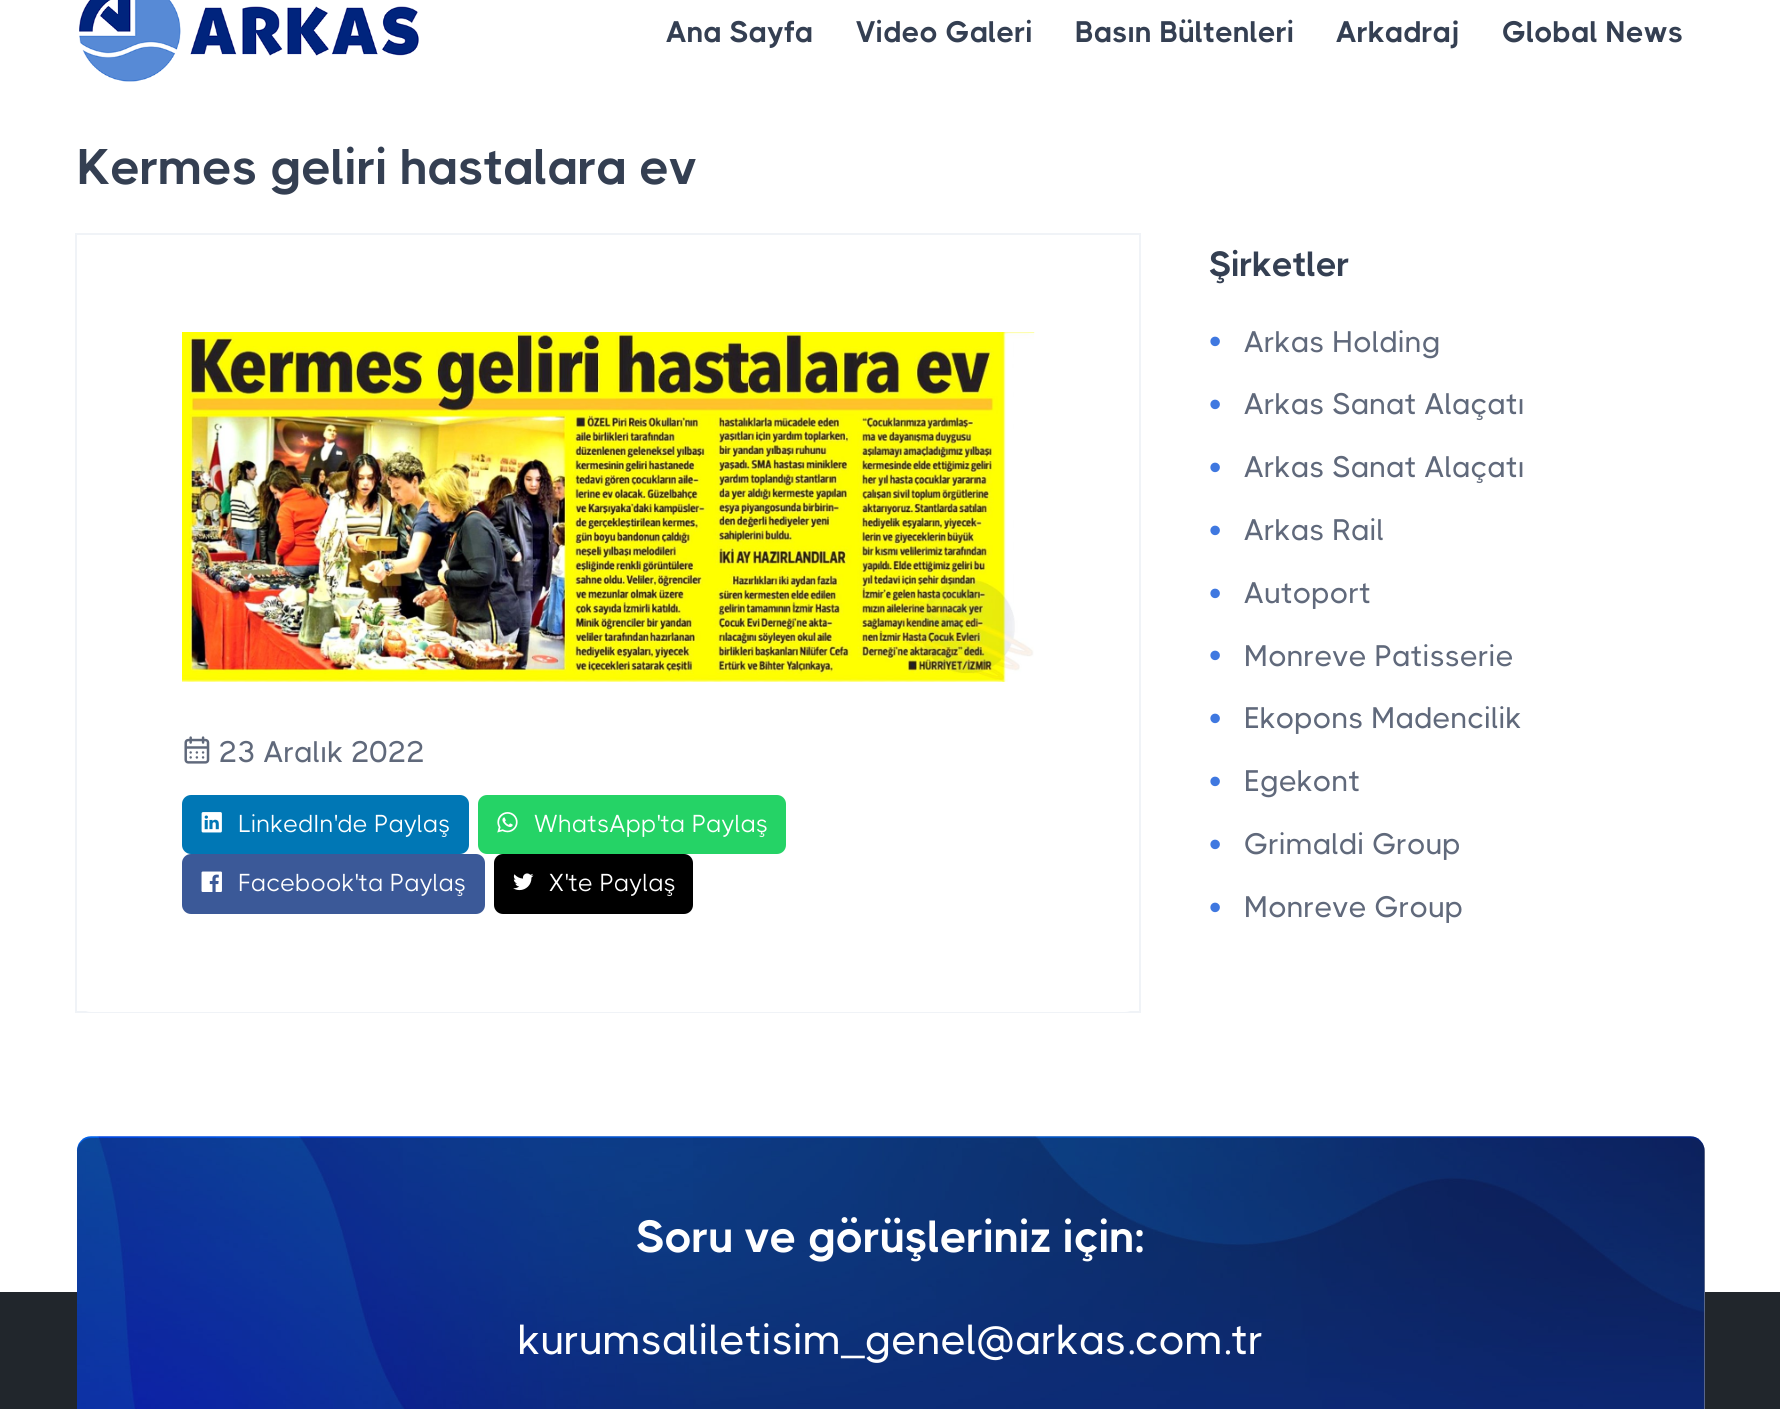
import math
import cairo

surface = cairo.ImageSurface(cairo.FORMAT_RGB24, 1780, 1409)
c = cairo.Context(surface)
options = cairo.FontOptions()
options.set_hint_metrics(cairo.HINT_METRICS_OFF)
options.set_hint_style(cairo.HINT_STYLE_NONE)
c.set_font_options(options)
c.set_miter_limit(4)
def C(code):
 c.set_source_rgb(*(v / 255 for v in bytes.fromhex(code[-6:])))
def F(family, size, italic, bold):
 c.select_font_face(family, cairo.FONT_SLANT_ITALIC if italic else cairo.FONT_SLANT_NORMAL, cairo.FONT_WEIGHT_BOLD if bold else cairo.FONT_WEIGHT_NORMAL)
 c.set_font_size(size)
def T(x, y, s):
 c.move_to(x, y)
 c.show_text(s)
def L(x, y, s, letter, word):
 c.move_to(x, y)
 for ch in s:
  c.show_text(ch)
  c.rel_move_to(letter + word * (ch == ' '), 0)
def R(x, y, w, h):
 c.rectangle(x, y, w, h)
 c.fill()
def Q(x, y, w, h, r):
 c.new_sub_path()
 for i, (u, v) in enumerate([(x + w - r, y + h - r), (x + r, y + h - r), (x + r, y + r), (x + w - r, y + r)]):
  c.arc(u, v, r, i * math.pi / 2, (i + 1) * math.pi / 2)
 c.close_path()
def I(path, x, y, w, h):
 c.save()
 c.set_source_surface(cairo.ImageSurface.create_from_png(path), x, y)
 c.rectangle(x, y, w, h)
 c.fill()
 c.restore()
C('ffffff')
c.paint()
I('1.png',79,0,340,82)
F('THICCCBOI',29.75,0,1)
C('343f52')
T(666,42,'Ana Sayfa')
T(856,42,'Video Galeri')
T(1075,42,'Basın Bültenleri')
T(1336,42,'Arkadraj')
T(1502,42,'Global News')
F('THICCCBOI',50,0,1)
L(77,184,'Kermes geliri hastalara ev',-.35,0)
c.rectangle(76,234,1064,778)
c.set_source_rgba(0.031,0.235,0.51,0.06)
c.stroke()
C('ffffff')
Q(77,235,1062,777,14)
c.fill()
I('2.png',182,332,853,350)
I('3.png',184,736,26,28)
F('THICCCBOI Medium',29.75,0,0)
C('60697b')
T(219,762,'23 Aralık 2022')
C('0077b5')
Q(182,795,287,59,9)
c.fill()
I('4.png',201,812,21,21)
F('THICCCBOI',24.5,0,0)
C('ffffff')
T(238,832,'LinkedIn\'de Paylaş')
C('25d366')
Q(478,795,308,59,9)
c.fill()
I('5.png',497,812,21,21)
C('ffffff')
T(534,832,'WhatsApp\'ta Paylaş')
C('3b5998')
Q(182,854,303,60,9)
c.fill()
I('6.png',201,871,21,21)
C('ffffff')
T(238,891,'Facebook\'ta Paylaş')
C('000000')
Q(494,854,199,60,9)
c.fill()
I('7.png',513,873,21,18)
C('ffffff')
T(549,891,'X\'te Paylaş')
F('THICCCBOI',35,0,1)
C('343f52')
L(1209,276,'Şirketler',-.35,0)
F('Liberation Sans',35,0,0)
C('3f78e0')
T(1209,353,'•')
F('THICCCBOI Medium',29.75,0,0)
C('60697b')
T(1244,352,'Arkas Holding')
F('Liberation Sans',35,0,0)
C('3f78e0')
T(1209,416,'•')
F('THICCCBOI Medium',29.75,0,0)
C('60697b')
T(1244,414,'Arkas Sanat Alaçatı')
F('Liberation Sans',35,0,0)
C('3f78e0')
T(1209,479,'•')
F('THICCCBOI Medium',29.75,0,0)
C('60697b')
T(1244,477,'Arkas Sanat Alaçatı')
F('Liberation Sans',35,0,0)
C('3f78e0')
T(1209,542,'•')
F('THICCCBOI Medium',29.75,0,0)
C('60697b')
T(1244,540,'Arkas Rail')
F('Liberation Sans',35,0,0)
C('3f78e0')
T(1209,605,'•')
F('THICCCBOI Medium',29.75,0,0)
C('60697b')
T(1244,603,'Autoport')
F('Liberation Sans',35,0,0)
C('3f78e0')
T(1209,667,'•')
F('THICCCBOI Medium',29.75,0,0)
C('60697b')
T(1244,666,'Monreve Patisserie')
F('Liberation Sans',35,0,0)
C('3f78e0')
T(1209,730,'•')
F('THICCCBOI Medium',29.75,0,0)
C('60697b')
T(1244,728,'Ekopons Madencilik')
F('Liberation Sans',35,0,0)
C('3f78e0')
T(1209,793,'•')
F('THICCCBOI Medium',29.75,0,0)
C('60697b')
T(1244,791,'Egekont')
F('Liberation Sans',35,0,0)
C('3f78e0')
T(1209,856,'•')
F('THICCCBOI Medium',29.75,0,0)
C('60697b')
T(1244,854,'Grimaldi Group')
F('Liberation Sans',35,0,0)
C('3f78e0')
T(1209,919,'•')
F('THICCCBOI Medium',29.75,0,0)
C('60697b')
T(1244,917,'Monreve Group')
C('21262c')
R(0,1292,1780,117)
C('ffffff')
Q(77,1138,1628,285,14)
c.fill()
I('8.png',76,1136,1629,273)
c.set_source_rgba(0.118,0.133,0.157,0.4)
Q(77,1138,1628,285,14)
c.fill()
F('THICCCBOI',45,0,1)
C('ffffff')
L(636,1252,'Soru ve görüşleriniz için:',-.35,0)
F('THICCCBOI Medium',42,0,0)
T(518,1354,'kurumsaliletisim_genel@arkas.com.tr')
surface.write_to_png('o.png')
